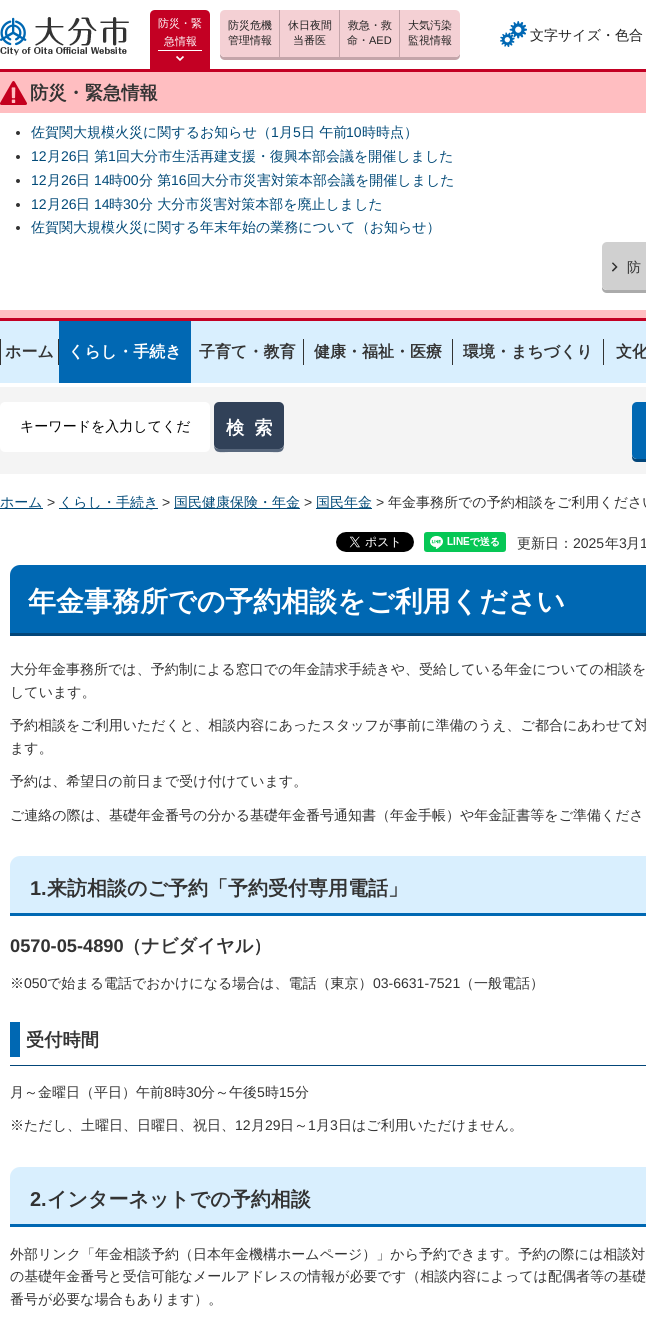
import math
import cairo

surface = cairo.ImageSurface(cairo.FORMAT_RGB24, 646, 1332)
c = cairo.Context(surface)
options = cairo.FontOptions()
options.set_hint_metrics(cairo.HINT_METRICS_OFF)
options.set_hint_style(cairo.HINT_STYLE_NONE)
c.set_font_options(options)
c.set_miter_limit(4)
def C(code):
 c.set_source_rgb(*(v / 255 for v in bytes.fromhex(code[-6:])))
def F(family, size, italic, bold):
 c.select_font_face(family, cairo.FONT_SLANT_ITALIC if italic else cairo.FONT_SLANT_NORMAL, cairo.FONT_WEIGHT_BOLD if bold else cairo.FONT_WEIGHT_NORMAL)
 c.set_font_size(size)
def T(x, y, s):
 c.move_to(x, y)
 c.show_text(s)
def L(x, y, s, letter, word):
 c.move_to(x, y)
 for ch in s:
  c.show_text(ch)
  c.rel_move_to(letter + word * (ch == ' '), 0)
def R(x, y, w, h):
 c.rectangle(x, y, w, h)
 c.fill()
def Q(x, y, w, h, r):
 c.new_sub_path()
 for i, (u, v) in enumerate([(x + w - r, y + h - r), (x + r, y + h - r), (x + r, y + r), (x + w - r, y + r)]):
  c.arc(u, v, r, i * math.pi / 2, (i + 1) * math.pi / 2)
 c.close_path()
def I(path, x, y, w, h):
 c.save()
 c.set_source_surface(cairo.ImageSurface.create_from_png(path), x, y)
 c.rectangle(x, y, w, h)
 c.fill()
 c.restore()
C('ffffff')
c.paint()
I('1.png',0,17,129,39)
C('c30023')
c.new_path()
c.move_to(155,10)
c.line_to(205,10)
c.curve_to(208,10,210,12,210,15)
c.line_to(210,69)
c.line_to(150,69)
c.line_to(150,15)
c.curve_to(150,12,152,10,155,10)
c.close_path()
c.fill()
F('WenQuanYi Zen Hei Medium',11,0,0)
C('ffffff')
T(158,27,'防災・緊')
T(164,45,'急情報')
I('2.png',176,56,8,5)
R(158,50,44,1)
C('ffbec1')
R(0,72,646,246)
C('c30023')
R(0,69,646,3)
R(0,318,646,3)
I('3.png',0,81,27,24)
F('WenQuanYi Zen Hei',18.25,0,1)
C('333333')
T(30,99,'防災・緊急情報')
C('ffffff')
R(0,113,646,197)
C('333333')
c.new_path()
c.arc(18,133,2,0,2 * math.pi)
c.fill()
F('WenQuanYi Zen Hei Medium',14,0,0)
C('024a78')
T(31,137,'佐賀関大規模火災に関するお知らせ（')
F('Liberation Sans',14,0,0)
T(271,137,'1')
F('WenQuanYi Zen Hei Medium',14,0,0)
T(279,137,'月')
F('Liberation Sans',14,0,0)
T(293,137,'5')
F('WenQuanYi Zen Hei Medium',14,0,0)
T(301,137,'日 午前')
F('Liberation Sans',14,0,0)
T(346,137,'10')
F('WenQuanYi Zen Hei Medium',14,0,0)
T(362,137,'時時点）')
C('333333')
c.new_path()
c.arc(18,157,2,0,2 * math.pi)
c.fill()
F('Liberation Sans',14,0,0)
C('024a78')
T(31,161,'12')
F('WenQuanYi Zen Hei Medium',14,0,0)
T(47,161,'月')
F('Liberation Sans',14,0,0)
T(61,161,'26')
F('WenQuanYi Zen Hei Medium',14,0,0)
T(76,161,'日 第')
F('Liberation Sans',14,0,0)
T(108,161,'1')
F('WenQuanYi Zen Hei Medium',14,0,0)
T(116,161,'回大分市生活再建支援・復興本部会議を開催しました')
C('333333')
c.new_path()
c.arc(18,181,2,0,2 * math.pi)
c.fill()
F('Liberation Sans',14,0,0)
C('024a78')
T(31,185,'12')
F('WenQuanYi Zen Hei Medium',14,0,0)
T(47,185,'月')
F('Liberation Sans',14,0,0)
T(61,185,'26')
F('WenQuanYi Zen Hei Medium',14,0,0)
T(76,185,'日')
F('Liberation Sans',14,0,0)
T(94,185,'14')
F('WenQuanYi Zen Hei Medium',14,0,0)
T(109,185,'時')
F('Liberation Sans',14,0,0)
T(123,185,'00')
F('WenQuanYi Zen Hei Medium',14,0,0)
T(139,185,'分 第')
F('Liberation Sans',14,0,0)
T(171,185,'16')
F('WenQuanYi Zen Hei Medium',14,0,0)
T(187,185,'回大分市災害対策本部会議を開催しました')
C('333333')
c.new_path()
c.arc(18,205,2,0,2 * math.pi)
c.fill()
F('Liberation Sans',14,0,0)
C('024a78')
T(31,209,'12')
F('WenQuanYi Zen Hei Medium',14,0,0)
T(47,209,'月')
F('Liberation Sans',14,0,0)
T(61,209,'26')
F('WenQuanYi Zen Hei Medium',14,0,0)
T(76,209,'日')
F('Liberation Sans',14,0,0)
T(94,209,'14')
F('WenQuanYi Zen Hei Medium',14,0,0)
T(109,209,'時')
F('Liberation Sans',14,0,0)
T(123,209,'30')
F('WenQuanYi Zen Hei Medium',14,0,0)
T(139,209,'分 大分市災害対策本部を廃止しました')
C('333333')
c.new_path()
c.arc(18,228,2,0,2 * math.pi)
c.fill()
C('024a78')
T(31,232,'佐賀関大規模火災に関する年末年始の業務について（お知らせ）')
C('ababab')
c.new_path()
c.move_to(602,285)
c.line_to(602,288)
c.curve_to(602,291,604,293,607,293)
c.line_to(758,293)
c.curve_to(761,293,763,291,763,288)
c.line_to(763,285)
c.curve_to(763,288,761,290,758,290)
c.line_to(607,290)
c.curve_to(604,290,602,288,602,285)
c.close_path()
c.fill()
C('d0d0d0')
Q(602,242,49,48,5)
c.fill()
I('4.png',612,262,6,10)
C('333333')
T(627,272,'防')
C('c4a5aa')
c.new_path()
c.move_to(220,52)
c.line_to(220,55)
c.curve_to(220,58,222,60,225,60)
c.line_to(280,60)
c.line_to(280,57)
c.line_to(225,57)
c.curve_to(222,57,220,55,220,52)
c.close_path()
c.fill()
C('f4d0d4')
c.new_path()
c.move_to(225,10)
c.line_to(280,10)
c.line_to(280,57)
c.line_to(225,57)
c.curve_to(222,57,220,55,220,52)
c.line_to(220,15)
c.curve_to(220,12,222,10,225,10)
c.close_path()
c.fill()
C('c4a5aa')
R(279,10,1,47)
F('WenQuanYi Zen Hei Medium',11,0,0)
C('222222')
T(228,29,'防災危機')
T(228,44,'管理情報')
C('c4a5aa')
R(280,57,120,3)
C('f4d0d4')
R(280,10,59,47)
C('c4a5aa')
R(339,10,1,47)
C('222222')
T(288,29,'休日夜間')
T(293,44,'当番医')
C('f4d0d4')
R(340,10,59,47)
C('c4a5aa')
R(399,10,1,47)
C('222222')
T(348,29,'救急・救')
T(347,44,'命・')
F('Liberation Sans',11,0,0)
T(369,44,'AED')
C('c4a5aa')
c.new_path()
c.move_to(400,57)
c.line_to(400,60)
c.line_to(455,60)
c.curve_to(458,60,460,58,460,55)
c.line_to(460,52)
c.curve_to(460,55,458,57,455,57)
c.close_path()
c.fill()
C('f4d0d4')
c.new_path()
c.move_to(400,10)
c.line_to(455,10)
c.curve_to(458,10,460,12,460,15)
c.line_to(460,52)
c.curve_to(460,55,458,57,455,57)
c.line_to(400,57)
c.close_path()
c.fill()
F('WenQuanYi Zen Hei Medium',11,0,0)
C('222222')
T(408,29,'大気汚染')
T(408,44,'監視情報')
I('5.png',500,21,27,26)
F('WenQuanYi Zen Hei Medium',14,0,0)
T(530,40,'文字サイズ・色合')
C('d9effe')
R(0,321,646,62)
C('333333')
R(58,339,1,26)
R(0,339,1,26)
F('WenQuanYi Zen Hei',16,0,1)
T(5,357,'ホーム')
C('0168b3')
R(59,321,132,62)
C('ffffff')
T(68,357,'くらし・手続き')
C('333333')
R(303,339,1,26)
T(199,357,'子育て・教育')
R(452,339,1,26)
T(314,357,'健康・福祉・医療')
R(603,339,1,26)
T(463,357,'環境・まちづくり')
T(616,357,'文化')
C('f4f4f4')
R(0,387,646,87)
C('ffffff')
Q(0,402,210,50,5)
c.fill()
F('WenQuanYi Zen Hei Medium',14,0,0)
C('000000')
T(20,431,'キーワードを入力してくだ')
C('59687d')
c.new_path()
c.move_to(214,444)
c.curve_to(214,454,219,452,229,452)
c.line_to(269,452)
c.curve_to(279,452,284,454,284,444)
c.curve_to(284,447,282,449,279,449)
c.line_to(219,449)
c.curve_to(216,449,214,447,214,444)
c.close_path()
c.fill()
C('314158')
Q(214,402,70,47,5)
c.fill()
F('WenQuanYi Zen Hei',18.25,0,1)
C('ffffff')
L(226,434,'検索',10,0)
C('03467a')
c.new_path()
c.move_to(632,454)
c.line_to(632,457)
c.curve_to(632,460,634,462,637,462)
c.line_to(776,462)
c.curve_to(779,462,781,460,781,457)
c.line_to(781,454)
c.curve_to(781,457,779,459,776,459)
c.line_to(637,459)
c.curve_to(634,459,632,457,632,454)
c.close_path()
c.fill()
C('0168b3')
Q(632,402,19,57,5)
c.fill()
C('024a78')
R(0,508,43,1)
F('WenQuanYi Zen Hei Medium',14,0,0)
T(0,507,'ホーム')
F('Liberation Sans',14,0,0)
C('333333')
T(47,507,'>')
C('024a78')
R(59,508,99,1)
F('WenQuanYi Zen Hei Medium',14,0,0)
T(59,507,'くらし・手続き')
F('Liberation Sans',14,0,0)
C('333333')
T(162,507,'>')
C('024a78')
R(174,508,126,1)
F('WenQuanYi Zen Hei Medium',14,0,0)
T(174,507,'国民健康保険・年金')
F('Liberation Sans',14,0,0)
C('333333')
T(304,507,'>')
C('024a78')
R(316,508,56,1)
F('WenQuanYi Zen Hei Medium',14,0,0)
T(316,507,'国民年金')
F('Liberation Sans',14,0,0)
C('333333')
T(376,507,'>')
F('WenQuanYi Zen Hei Medium',14,0,0)
T(388,507,'年金事務所での予約相談をご利用ください')
I('6.png',336,532,78,20)
I('7.png',424,532,82,20)
T(517,548,'更新日：')
F('Liberation Sans',14,0,0)
T(573,548,'2025')
F('WenQuanYi Zen Hei Medium',14,0,0)
T(605,548,'年')
F('Liberation Sans',14,0,0)
T(619,548,'3')
F('WenQuanYi Zen Hei Medium',14,0,0)
T(626,548,'月')
F('Liberation Sans',14,0,0)
T(640,548,'1')
C('0068b3')
c.new_path()
c.move_to(20,565)
c.line_to(646,565)
c.curve_to(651.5,565,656,569.5,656,575)
c.line_to(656,636)
c.line_to(10,636)
c.line_to(10,575)
c.curve_to(10,569.5,14.5,565,20,565)
c.close_path()
c.fill()
C('034679')
R(10,633,636,3)
F('WenQuanYi Zen Hei',28,0,1)
C('ffffff')
T(28,611,'年金事務所での予約相談をご利用ください')
F('WenQuanYi Zen Hei Medium',14,0,0)
C('333333')
T(10,674,'大分年金事務所では、予約制による窓口での年金請求手続きや、受給している年金についての相談を')
T(10,697,'しています。')
T(10,730,'予約相談をご利用いただくと、相談内容にあったスタッフが事前に準備のうえ、ご都合にあわせて対')
T(10,753,'ます。')
T(10,786,'予約は、希望日の前日まで受け付けています。')
T(10,820,'ご連絡の際は、基礎年金番号の分かる基礎年金番号通知書（年金手帳）や年金証書等をご準備くださ')
C('d9effe')
c.new_path()
c.move_to(20,856)
c.line_to(646,856)
c.curve_to(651.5,856,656,860.5,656,866)
c.line_to(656,916)
c.line_to(10,916)
c.line_to(10,866)
c.curve_to(10,860.5,14.5,856,20,856)
c.close_path()
c.fill()
C('0068b3')
R(10,913,636,3)
F('Liberation Sans',20,0,1)
C('333333')
T(30,895,'1.')
F('WenQuanYi Zen Hei',20,0,1)
T(47,895,'来訪相談のご予約「予約受付専用電話」')
F('Liberation Sans',18.25,0,1)
T(10,952,'0570-05-4890')
F('WenQuanYi Zen Hei',18.25,0,1)
T(123,952,'（ナビダイヤル）')
F('WenQuanYi Zen Hei Medium',14,0,0)
T(10,988,'※')
F('Liberation Sans',14,0,0)
T(24,988,'050')
F('WenQuanYi Zen Hei Medium',14,0,0)
T(47,988,'で始まる電話でおかけになる場合は、電話（東京）')
F('Liberation Sans',14,0,0)
T(373,988,'03-6631-7521')
F('WenQuanYi Zen Hei Medium',14,0,0)
T(460,988,'（一般電話）')
C('0068b3')
R(10,1022,10,35)
C('034679')
R(10,1065,636,1)
F('WenQuanYi Zen Hei',18.25,0,1)
C('333333')
T(26,1046,'受付時間')
F('WenQuanYi Zen Hei Medium',14,0,0)
T(10,1097,'月～金曜日（平日）午前')
F('Liberation Sans',14,0,0)
T(164,1097,'8')
F('WenQuanYi Zen Hei Medium',14,0,0)
T(172,1097,'時')
F('Liberation Sans',14,0,0)
T(186,1097,'30')
F('WenQuanYi Zen Hei Medium',14,0,0)
T(201,1097,'分～午後')
F('Liberation Sans',14,0,0)
T(257,1097,'5')
F('WenQuanYi Zen Hei Medium',14,0,0)
T(265,1097,'時')
F('Liberation Sans',14,0,0)
T(279,1097,'15')
F('WenQuanYi Zen Hei Medium',14,0,0)
T(295,1097,'分')
T(10,1130,'※ただし、土曜日、日曜日、祝日、')
F('Liberation Sans',14,0,0)
T(235,1130,'12')
F('WenQuanYi Zen Hei Medium',14,0,0)
T(251,1130,'月')
F('Liberation Sans',14,0,0)
T(265,1130,'29')
F('WenQuanYi Zen Hei Medium',14,0,0)
T(280,1130,'日～')
F('Liberation Sans',14,0,0)
T(308,1130,'1')
F('WenQuanYi Zen Hei Medium',14,0,0)
T(316,1130,'月')
F('Liberation Sans',14,0,0)
T(330,1130,'3')
F('WenQuanYi Zen Hei Medium',14,0,0)
T(338,1130,'日はご利用いただけません。')
C('d9effe')
c.new_path()
c.move_to(20,1167)
c.line_to(646,1167)
c.curve_to(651.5,1167,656,1171.5,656,1177)
c.line_to(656,1227)
c.line_to(10,1227)
c.line_to(10,1177)
c.curve_to(10,1171.5,14.5,1167,20,1167)
c.close_path()
c.fill()
C('0068b3')
R(10,1224,636,3)
F('Liberation Sans',20,0,1)
C('333333')
T(30,1206,'2.')
F('WenQuanYi Zen Hei',20,0,1)
T(47,1206,'インターネットでの予約相談')
F('WenQuanYi Zen Hei Medium',14,0,0)
T(10,1259,'外部リンク「年金相談予約（日本年金機構ホームページ）」から予約できます。予約の際には相談対')
T(10,1281,'の基礎年金番号と受信可能なメールアドレスの情報が必要です（相談内容によっては配偶者等の基礎')
T(10,1304,'番号が必要な場合もあります）。')
surface.write_to_png('o.png')
